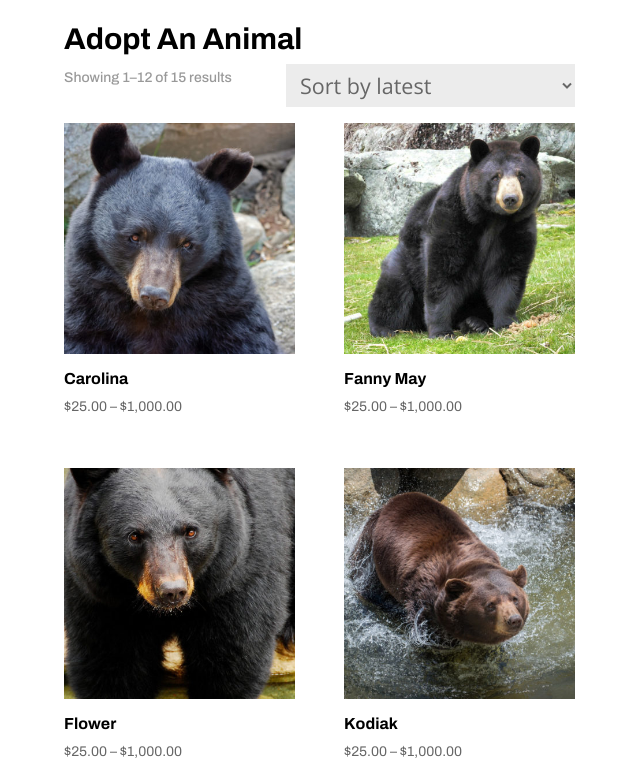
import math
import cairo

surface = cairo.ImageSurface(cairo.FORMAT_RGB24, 639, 780)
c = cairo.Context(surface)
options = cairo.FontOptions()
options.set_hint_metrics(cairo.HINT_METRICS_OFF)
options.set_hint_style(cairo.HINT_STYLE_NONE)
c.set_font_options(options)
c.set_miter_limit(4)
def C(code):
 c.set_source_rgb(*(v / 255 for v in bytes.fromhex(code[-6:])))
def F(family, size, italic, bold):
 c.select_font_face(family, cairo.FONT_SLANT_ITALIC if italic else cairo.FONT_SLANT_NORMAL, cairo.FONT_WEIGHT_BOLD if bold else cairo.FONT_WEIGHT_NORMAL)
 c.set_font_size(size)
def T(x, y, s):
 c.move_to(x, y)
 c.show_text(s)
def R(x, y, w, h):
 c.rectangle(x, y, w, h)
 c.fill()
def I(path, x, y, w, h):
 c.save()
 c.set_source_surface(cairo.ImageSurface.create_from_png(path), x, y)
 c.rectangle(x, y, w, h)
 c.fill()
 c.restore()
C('ffffff')
c.paint()
F('Archivo',30,0,1)
C('000000')
T(64,49,'Adopt An Animal')
F('Archivo Medium',14,0,0)
C('999999')
T(64,82,'Showing 1–12 of 15 results')
C('ececec')
R(286,64,289,43)
c.new_path()
c.move_to(563,83.5)
c.line_to(567,87.5)
c.line_to(571,83.5)
C('666666')
c.stroke()
F('Open Sans',21.5,0,0)
T(300,94,'Sort by latest')
I('1.png',64,123,231,231)
F('Archivo',16,0,1)
C('000000')
T(64,384,'Carolina')
F('Archivo',14,0,0)
C('666666')
T(64,411,'$25.00 – $1,000.00')
I('2.png',344,123,231,231)
F('Archivo',16,0,1)
C('000000')
T(344,384,'Fanny May')
F('Archivo',14,0,0)
C('666666')
T(344,411,'$25.00 – $1,000.00')
I('3.png',64,468,231,231)
F('Archivo',16,0,1)
C('000000')
T(64,729,'Flower')
F('Archivo',14,0,0)
C('666666')
T(64,756,'$25.00 – $1,000.00')
I('4.png',344,468,231,231)
F('Archivo',16,0,1)
C('000000')
T(344,729,'Kodiak')
F('Archivo',14,0,0)
C('666666')
T(344,756,'$25.00 – $1,000.00')
surface.write_to_png('o.png')
